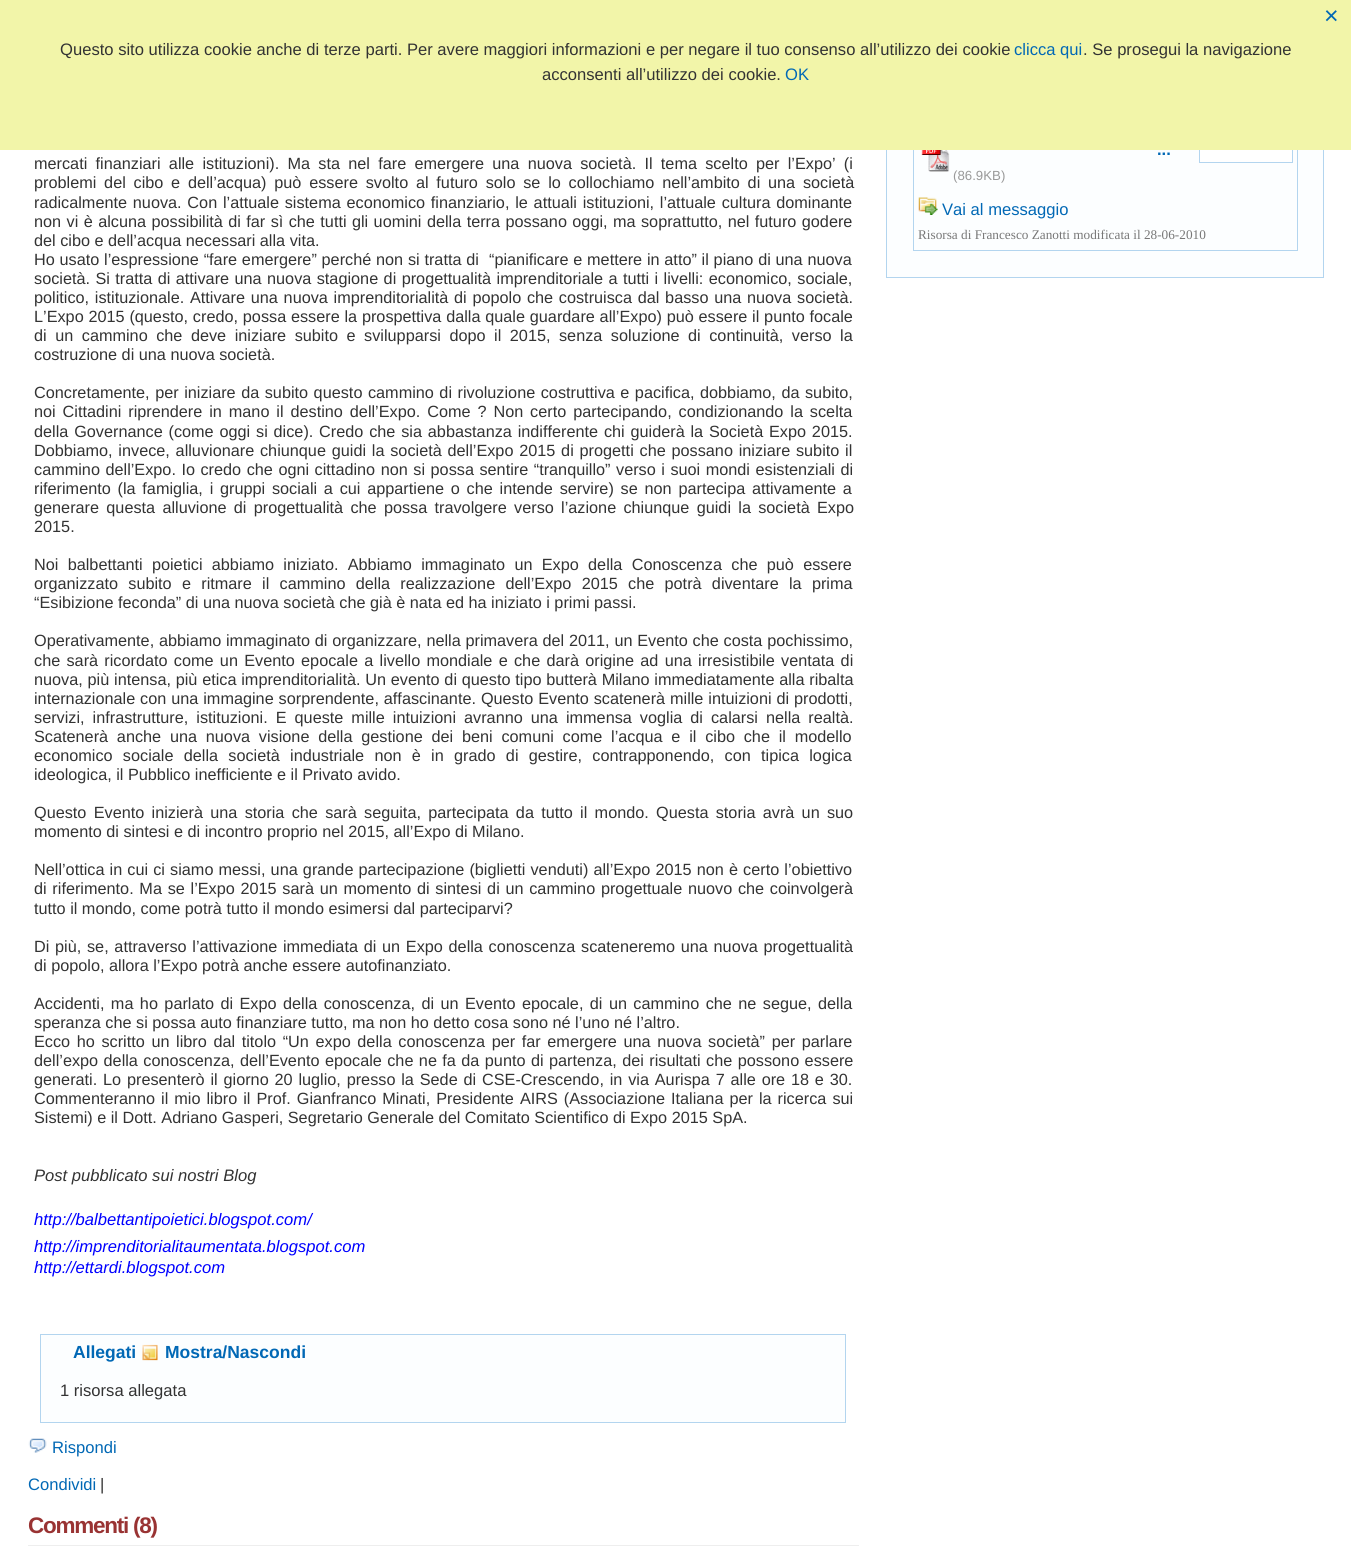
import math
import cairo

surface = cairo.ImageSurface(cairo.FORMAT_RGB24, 1351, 1546)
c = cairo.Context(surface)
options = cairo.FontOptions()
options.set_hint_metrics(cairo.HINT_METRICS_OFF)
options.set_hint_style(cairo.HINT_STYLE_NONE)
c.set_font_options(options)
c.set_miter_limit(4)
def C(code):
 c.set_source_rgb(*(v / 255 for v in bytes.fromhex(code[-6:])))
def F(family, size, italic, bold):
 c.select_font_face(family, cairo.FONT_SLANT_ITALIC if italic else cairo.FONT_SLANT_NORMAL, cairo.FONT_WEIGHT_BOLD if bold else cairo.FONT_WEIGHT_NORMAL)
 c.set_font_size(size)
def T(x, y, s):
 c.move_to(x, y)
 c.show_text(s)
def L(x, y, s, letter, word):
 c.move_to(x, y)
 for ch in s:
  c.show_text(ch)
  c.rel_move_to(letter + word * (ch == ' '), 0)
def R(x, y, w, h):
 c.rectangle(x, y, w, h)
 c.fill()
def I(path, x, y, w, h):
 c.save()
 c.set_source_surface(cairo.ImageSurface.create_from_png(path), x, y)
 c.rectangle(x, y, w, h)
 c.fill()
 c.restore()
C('ffffff')
c.paint()
C('fcfeff')
R(887,150,436,127)
c.rectangle(886.5,-.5,437,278)
C('b3d5ef')
c.set_line_width(1)
c.stroke()
c.rectangle(913.5,25.5,384,225)
c.stroke()
C('ffffff')
R(1200,150,92,12)
c.rectangle(1199.5,135.5,93,27)
C('b3d5ef')
c.stroke()
C('f2f5a9')
R(0,0,1351,150)
F('Liberation Sans',25,0,0)
C('0168b5')
T(1324,24,'×')
F('Liberation Sans',16.6,0,0)
C('333333')
T(60,55,'Questo sito utilizza cookie anche di terze parti. Per avere maggiori informazioni e per negare il tuo consenso all’utilizzo dei cookie')
C('0168b5')
T(1014,55,'clicca qui')
C('333333')
T(1083,55,'. Se prosegui la navigazione')
T(542,80,'acconsenti all’utilizzo dei cookie.')
C('0168b5')
T(785,80,'OK')
F('Liberation Sans',16.25,0,0)
C('333333')
L(34,169,'mercati finanziari alle istituzioni). Ma sta nel fare emergere una nuova società. Il tema scelto per l’Expo’ (i',0,3.75)
L(34,188,'problemi del cibo e dell’acqua) può essere svolto al futuro solo se lo collochiamo nell’ambito di una società',0,3.25)
L(34,208,'radicalmente nuova. Con l’attuale sistema economico finanziario, le attuali istituzioni, l’attuale cultura dominante',0,1.25)
L(34,227,'non vi è alcuna possibilità di far sì che tutti gli uomini della terra possano oggi, ma soprattutto, nel futuro godere',0,.9)
T(34,246,'del cibo e dell’acqua necessari alla vita.')
L(34,265,'Ho usato l’espressione “fare emergere” perché non si tratta di',0,.25)
L(489,265,'“pianificare e mettere in atto” il piano di una nuova',0,.25)
L(34,284,'società. Si tratta di attivare una nuova stagione di progettualità imprenditoriale a tutti i livelli: economico, sociale,',0,.9)
L(34,303,'politico, istituzionale. Attivare una nuova imprenditorialità di popolo che costruisca dal basso una nuova società.',0,1.2)
L(34,322,'L’Expo 2015 (questo, credo, possa essere la prospettiva dalla quale guardare all’Expo) può essere il punto focale',0,.25)
L(34,341,'di un cammino che deve iniziare subito e svilupparsi dopo il 2015, senza soluzione di continuità, verso la',0,4)
T(34,360,'costruzione di una nuova società.')
L(34,398,'Concretamente, per iniziare da subito questo cammino di rivoluzione costruttiva e pacifica, dobbiamo, da subito,',0,1)
L(34,417,'noi Cittadini riprendere in mano il destino dell’Expo. Come ? Non certo partecipando, condizionando la scelta',0,2.4)
L(34,437,'della Governance (come oggi si dice). Credo che sia abbastanza indifferente chi guiderà la Società Expo 2015.',0,1.3)
L(34,456,'Dobbiamo, invece, alluvionare chiunque guidi la società dell’Expo 2015 di progetti che possano iniziare subito il',0,1.25)
L(34,475,'cammino dell’Expo. Io credo che ogni cittadino non si possa sentire “tranquillo” verso i suoi mondi esistenziali di',0,1)
L(34,494,'riferimento (la famiglia, i gruppi sociali a cui appartiene o che intende servire) se non partecipa attivamente a',0,2.25)
L(34,513,'generare questa alluvione di progettualità che possa travolgere verso l’azione chiunque guidi la società Expo',0,2.75)
T(34,532,'2015.')
L(34,570,'Noi balbettanti poietici abbiamo iniziato. Abbiamo immaginato un Expo della Conoscenza che può essere',0,4.75)
L(34,589,'organizzato subito e ritmare il cammino della realizzazione dell’Expo 2015 che potrà diventare la prima',0,5.75)
T(34,608,'“Esibizione feconda” di una nuova società che già è nata ed ha iniziato i primi passi.')
L(34,646,'Operativamente, abbiamo immaginato di organizzare, nella primavera del 2011, un Evento che costa pochissimo,',0,.25)
L(34,666,'che sarà ricordato come un Evento epocale a livello mondiale e che darà origine ad una irresistibile ventata di',0,1.75)
L(34,685,'nuova, più intensa, più etica imprenditorialità. Un evento di questo tipo butterà Milano immediatamente alla ribalta',0,.25)
L(34,704,'internazionale con una immagine sorprendente, affascinante. Questo Evento scatenerà mille intuizioni di prodotti,',0,.4)
L(34,723,'servizi, infrastrutture, istituzioni. E queste mille intuizioni avranno una immensa voglia di calarsi nella realtà.',0,3.5)
L(34,742,'Scatenerà anche una nuova visione della gestione dei beni comuni come l’acqua e il cibo che il modello',0,4.25)
L(34,761,'economico sociale della società industriale non è in grado di gestire, contrapponendo, con tipica logica',0,5.75)
T(34,780,'ideologica, il Pubblico inefficiente e il Privato avido.')
L(34,818,'Questo Evento inizierà una storia che sarà seguita, partecipata da tutto il mondo. Questa storia avrà un suo',0,2.75)
T(34,837,'momento di sintesi e di incontro proprio nel 2015, all’Expo di Milano.')
L(34,875,'Nell’ottica in cui ci siamo messi, una grande partecipazione (biglietti venduti) all’Expo 2015 non è certo l’obiettivo',0,.6)
L(34,894,'di riferimento. Ma se l’Expo 2015 sarà un momento di sintesi di un cammino progettuale nuovo che coinvolgerà',0,1.2)
T(34,914,'tutto il mondo, come potrà tutto il mondo esimersi dal parteciparvi?')
L(34,952,'Di più, se, attraverso l’attivazione immediata di un Expo della conoscenza scateneremo una nuova progettualità',0,1.2)
T(34,971,'di popolo, allora l’Expo potrà anche essere autofinanziato.')
L(34,1009,'Accidenti, ma ho parlato di Expo della conoscenza, di un Evento epocale, di un cammino che ne segue, della',0,1.9)
T(34,1028,'speranza che si possa auto finanziare tutto, ma non ho detto cosa sono né l’uno né l’altro.')
L(34,1047,'Ecco ho scritto un libro dal titolo “Un expo della conoscenza per far emergere una nuova società” per parlare',0,2.1)
L(34,1066,'dell’expo della conoscenza, dell’Evento epocale che ne fa da punto di partenza, dei risultati che possono essere',0,.9)
L(34,1085,'generati. Lo presenterò il giorno 20 luglio, presso la Sede di CSE-Crescendo, in via Aurispa 7 alle ore 18 e 30.',0,1.3)
L(34,1104,'Commenteranno il mio libro il Prof. Gianfranco Minati, Presidente AIRS (Associazione Italiana per la ricerca sui',0,1.5)
T(34,1123,'Sistemi) e il Dott. Adriano Gasperi, Segretario Generale del Comitato Scientifico di Expo 2015 SpA.')
F('Liberation Sans',16.6,1,0)
T(34,1181,'Post pubblicato sui nostri Blog')
C('0000ff')
T(34,1225,'http://balbettantipoietici.blogspot.com/')
T(34,1252,'http://imprenditorialitaumentata.blogspot.com')
T(34,1273,'http://ettardi.blogspot.com')
C('fcfeff')
c.rectangle(40.5,1334.5,805,88)
c.fill_preserve()
C('b3d5ef')
c.stroke()
F('Liberation Sans',17.5,0,1)
C('0168b5')
T(73,1358,'Allegati')
I('1.png',142,1344,16,17)
T(165,1358,'Mostra/Nascondi')
F('Liberation Sans',16.6,0,0)
C('333333')
T(60,1396,'1 risorsa allegata')
I('2.png',28,1438,19,15)
C('0168b5')
T(52,1453,'Rispondi')
T(28,1490,'Condividi')
C('333333')
T(100,1490,'|')
C('eeeeee')
R(28,1545,831,1)
F('Liberation Sans',22.5,0,1)
C('993333')
L(28,1533,'Commenti (8)',-1.25,0)
I('3.png',921,150,29,22)
F('Liberation Sans',16.6,0,1)
C('0168b5')
T(1157,155,'...')
F('Liberation Sans',13.25,0,0)
C('999999')
T(953,180,'(86.9KB)')
I('4.png',918,197,20,18)
F('Liberation Sans',16.6,0,0)
C('0168b5')
T(942,215,'Vai al messaggio')
F('Liberation Serif',13.25,0,0)
C('777777')
T(918,239,'Risorsa di Francesco Zanotti modificata il 28-06-2010')
surface.write_to_png('o.png')
